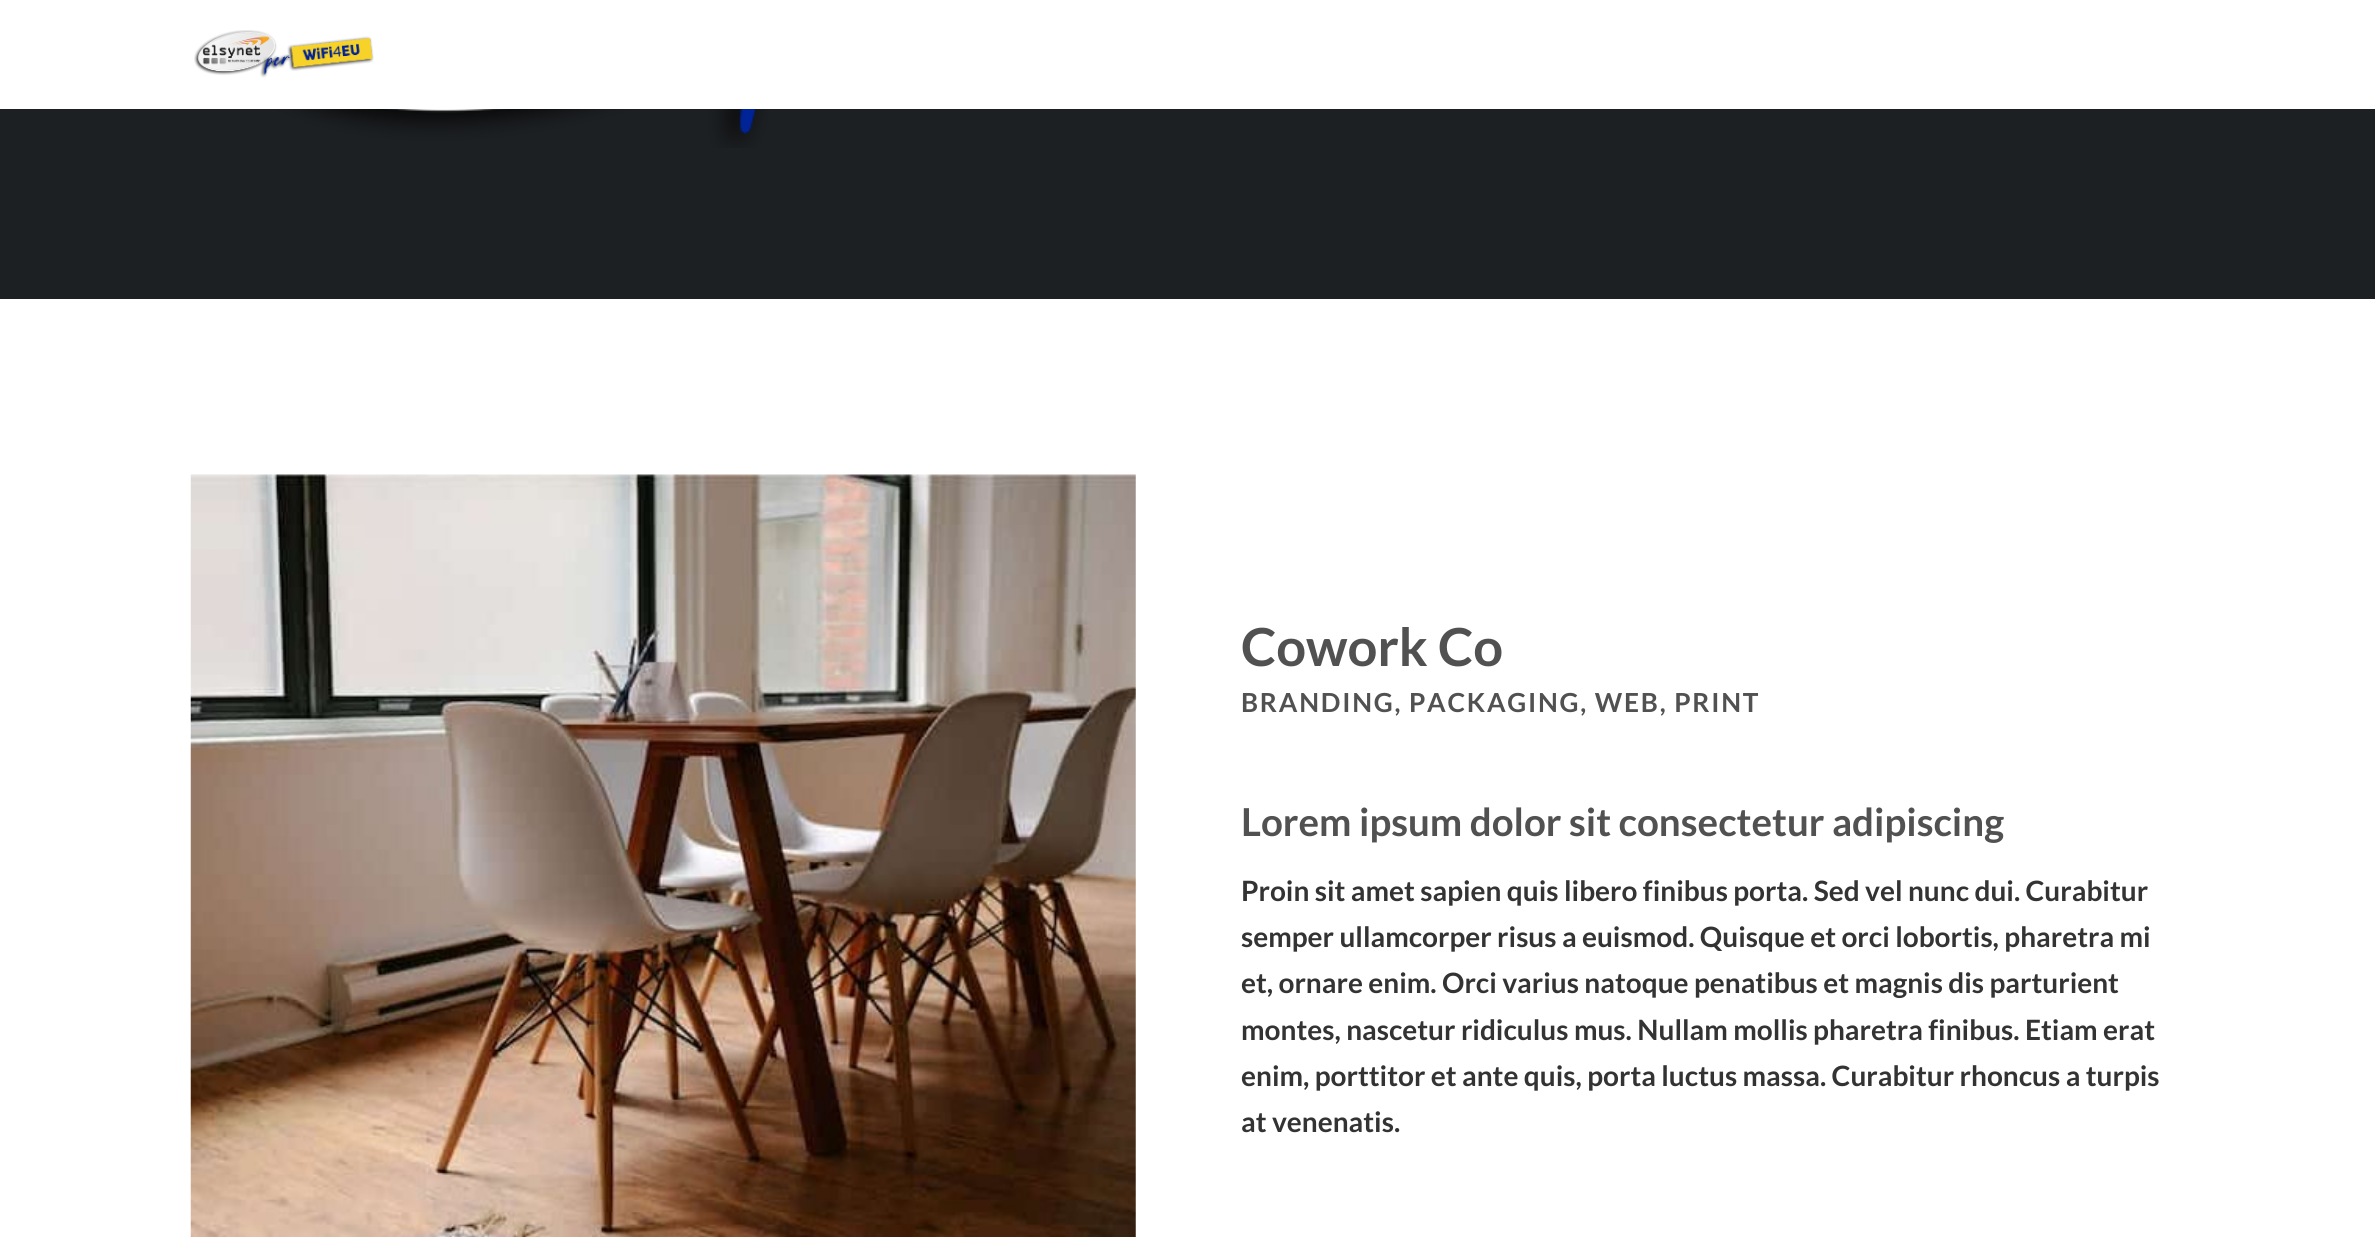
import math
import cairo

surface = cairo.ImageSurface(cairo.FORMAT_RGB24, 2375, 1237)
c = cairo.Context(surface)
options = cairo.FontOptions()
options.set_hint_metrics(cairo.HINT_METRICS_OFF)
options.set_hint_style(cairo.HINT_STYLE_NONE)
c.set_font_options(options)
c.set_miter_limit(4)
def C(code):
 c.set_source_rgb(*(v / 255 for v in bytes.fromhex(code[-6:])))
def F(family, size, italic, bold):
 c.select_font_face(family, cairo.FONT_SLANT_ITALIC if italic else cairo.FONT_SLANT_NORMAL, cairo.FONT_WEIGHT_BOLD if bold else cairo.FONT_WEIGHT_NORMAL)
 c.set_font_size(size)
def T(x, y, s):
 c.move_to(x, y)
 c.show_text(s)
def L(x, y, s, letter, word):
 c.move_to(x, y)
 for ch in s:
  c.show_text(ch)
  c.rel_move_to(letter + word * (ch == ' '), 0)
def R(x, y, w, h):
 c.rectangle(x, y, w, h)
 c.fill()
def I(path, x, y, w, h):
 c.save()
 c.set_source_surface(cairo.ImageSurface.create_from_png(path), x, y)
 c.rectangle(x, y, w, h)
 c.fill()
 c.restore()
C('ffffff')
c.paint()
I('1.png',194,30,180,48)
C('1d2023')
R(0,109,2375,190)
I('2.png',276,109,493,39)
I('3.png',190,474,946,763)
F('Lato',52.5,0,1)
C('515151')
T(1241,666,'Cowork Co')
F('Lato',26.25,0,1)
L(1241,712,'BRANDING, PACKAGING, WEB, PRINT',1.75,0)
F('Lato',38.5,0,1)
T(1241,836,'Lorem ipsum dolor sit consectetur adipiscing')
F('Lato',28,0,1)
C('333333')
T(1241,901,'Proin sit amet sapien quis libero finibus porta. Sed vel nunc dui. Curabitur')
T(1241,947,'semper ullamcorper risus a euismod. Quisque et orci lobortis, pharetra mi')
T(1241,993,'et, ornare enim. Orci varius natoque penatibus et magnis dis parturient')
T(1241,1040,'montes, nascetur ridiculus mus. Nullam mollis pharetra finibus. Etiam erat')
T(1241,1086,'enim, porttitor et ante quis, porta luctus massa. Curabitur rhoncus a turpis')
T(1241,1132,'at venenatis.')
surface.write_to_png('o.png')
